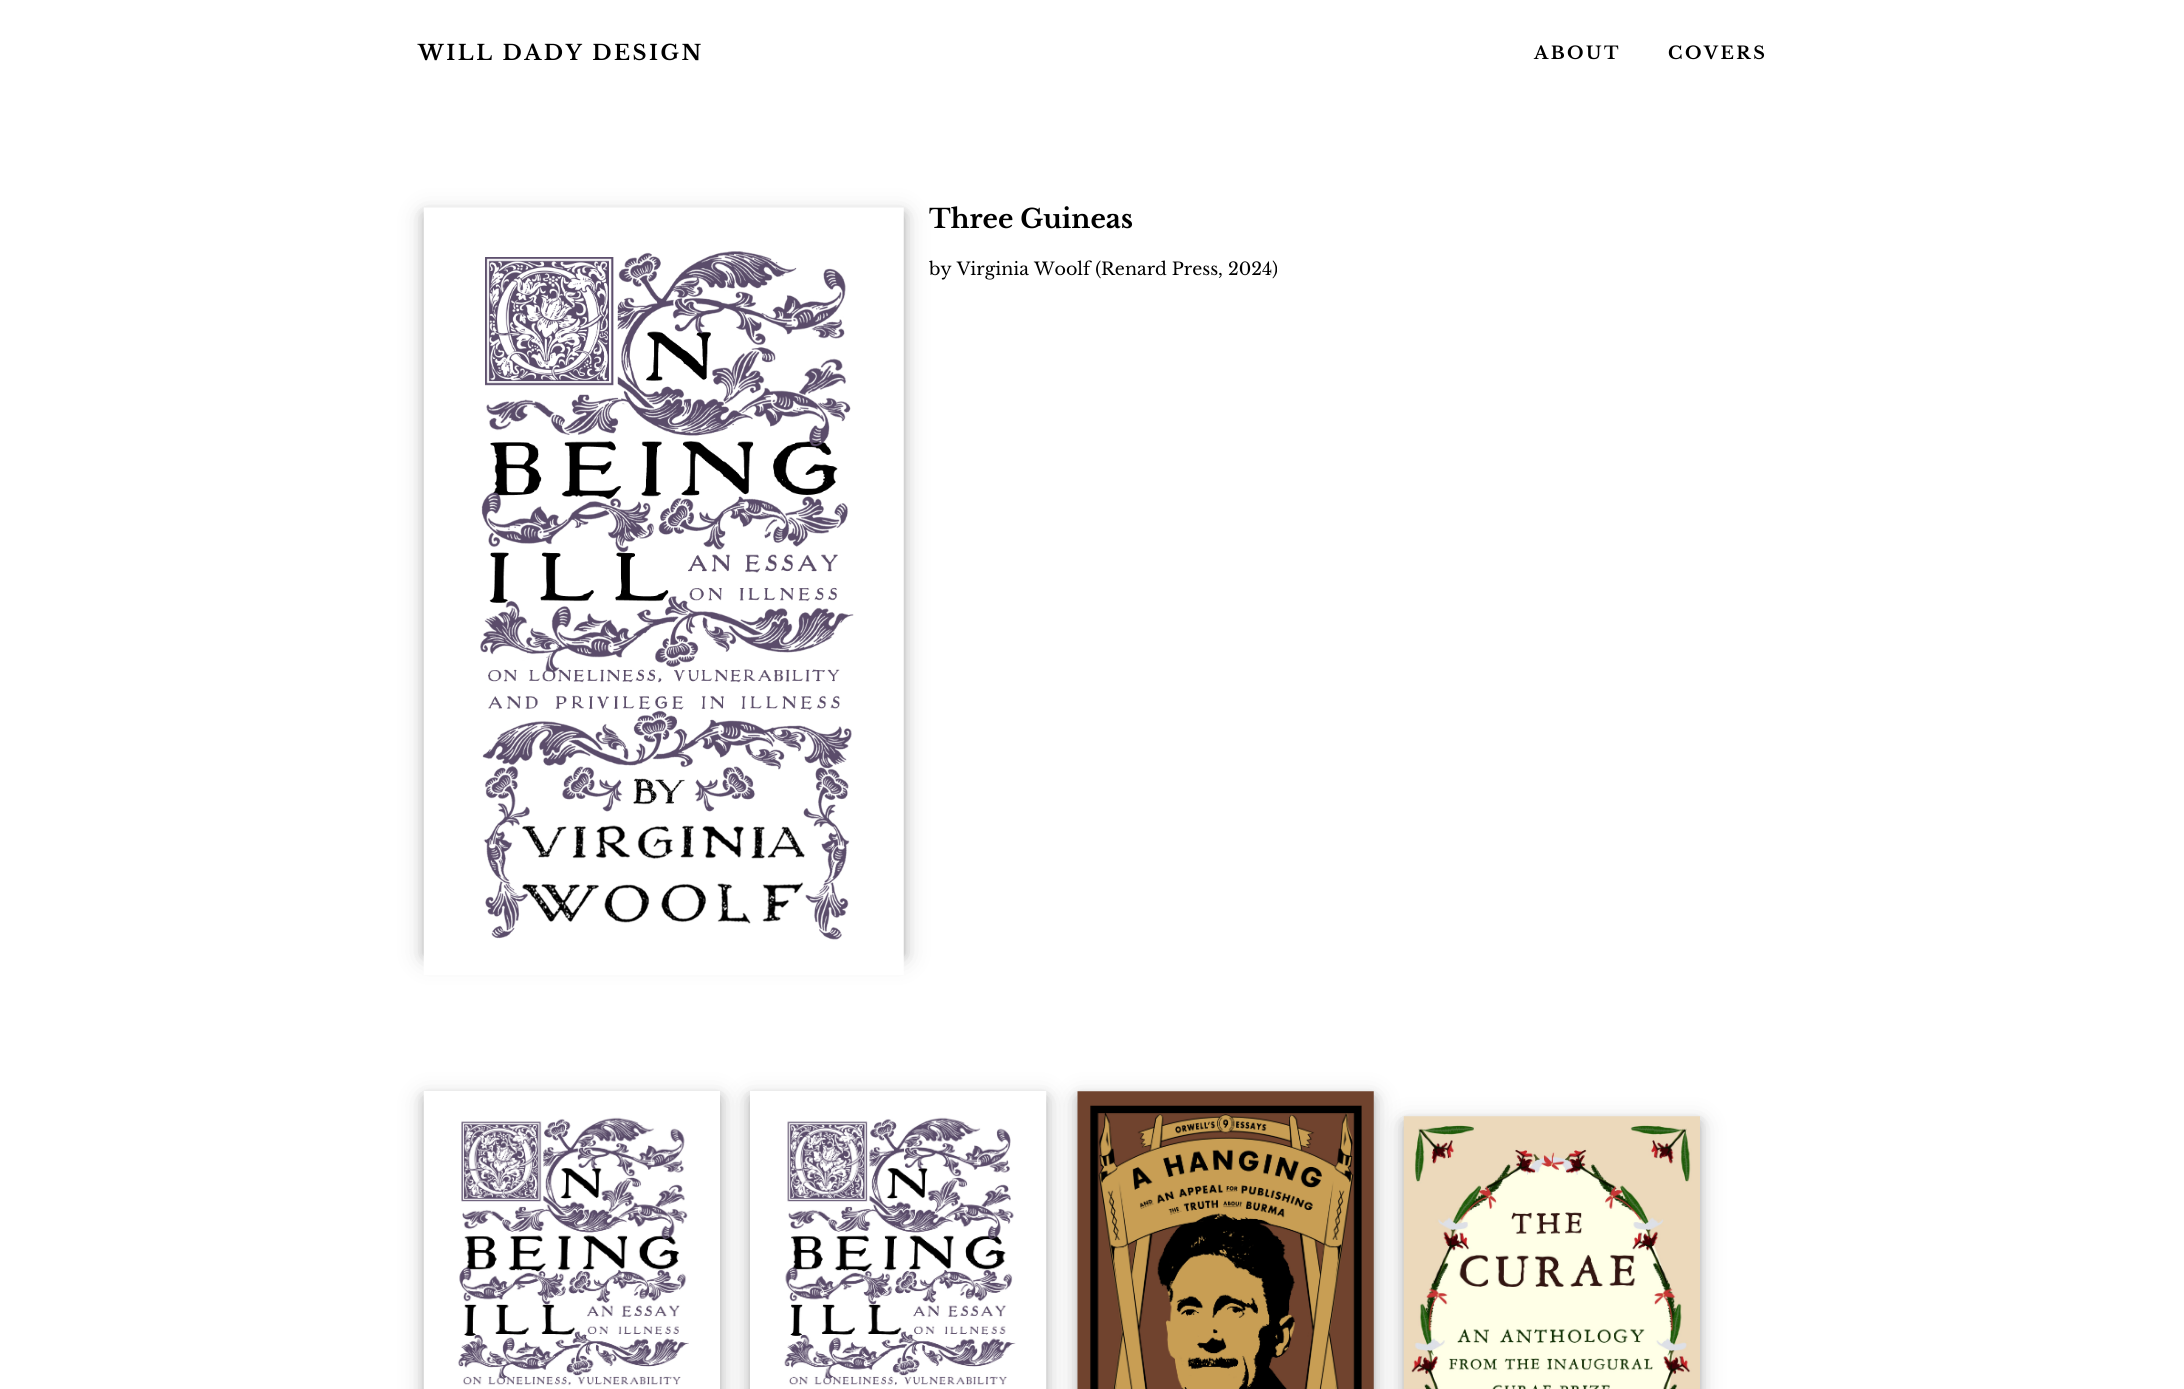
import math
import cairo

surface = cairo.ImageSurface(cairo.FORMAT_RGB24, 2184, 1389)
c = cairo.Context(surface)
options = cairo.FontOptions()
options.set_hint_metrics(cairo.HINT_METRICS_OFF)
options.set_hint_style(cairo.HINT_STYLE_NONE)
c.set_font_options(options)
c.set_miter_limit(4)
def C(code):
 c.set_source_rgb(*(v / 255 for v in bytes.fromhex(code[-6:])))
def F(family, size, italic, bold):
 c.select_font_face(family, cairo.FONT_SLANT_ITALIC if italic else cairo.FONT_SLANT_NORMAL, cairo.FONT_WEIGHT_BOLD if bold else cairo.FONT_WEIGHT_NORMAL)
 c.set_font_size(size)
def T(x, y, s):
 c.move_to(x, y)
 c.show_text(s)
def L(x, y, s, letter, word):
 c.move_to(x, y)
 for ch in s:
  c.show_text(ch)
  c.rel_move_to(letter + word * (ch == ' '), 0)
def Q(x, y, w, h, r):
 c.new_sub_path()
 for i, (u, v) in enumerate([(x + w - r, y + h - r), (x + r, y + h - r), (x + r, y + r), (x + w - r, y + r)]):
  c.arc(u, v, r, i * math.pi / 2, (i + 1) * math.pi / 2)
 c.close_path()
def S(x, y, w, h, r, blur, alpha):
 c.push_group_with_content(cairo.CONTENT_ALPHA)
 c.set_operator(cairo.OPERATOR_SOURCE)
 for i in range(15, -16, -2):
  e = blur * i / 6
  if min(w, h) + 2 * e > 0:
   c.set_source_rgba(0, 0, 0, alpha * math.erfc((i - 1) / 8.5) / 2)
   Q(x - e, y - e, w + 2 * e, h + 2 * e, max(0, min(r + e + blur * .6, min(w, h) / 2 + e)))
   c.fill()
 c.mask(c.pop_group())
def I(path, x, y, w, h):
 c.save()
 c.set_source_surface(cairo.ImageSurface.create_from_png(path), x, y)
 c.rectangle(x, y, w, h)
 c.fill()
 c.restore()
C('ffffff')
c.paint()
F('Libre Baskerville',21,0,1)
C('000000')
L(418,60,'WILL DADY DESIGN',2.5,0)
F('Libre Baskerville',17.5,0,1)
L(1534,59,'ABOUT',2.5,0)
L(1668,59,'COVERS',2.5,0)
C('000000')
S(424,215,480,743,0,12.5,.19)
S(424,213,480,742,0,5,.2)
I('1.png',423,207,481,768)
F('Libre Baskerville',26.25,0,1)
C('000000')
T(929,228,'Three Guineas')
F('Libre Baskerville',17.5,0,0)
T(929,275,'by Virginia Woolf (Renard Press, 2024)')
c.save()
c.set_fill_rule(cairo.FILL_RULE_EVEN_ODD)
c.new_path()
c.move_to(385,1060)
c.line_to(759,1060)
c.line_to(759,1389)
c.line_to(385,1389)
c.close_path()
c.move_to(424,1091)
c.line_to(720,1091)
c.line_to(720,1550)
c.line_to(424,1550)
c.close_path()
c.clip()
C('000000')
S(424,1099,296,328,0,12.5,.19)
c.restore()
c.save()
c.set_fill_rule(cairo.FILL_RULE_EVEN_ODD)
c.new_path()
c.move_to(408,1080)
c.line_to(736,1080)
c.line_to(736,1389)
c.line_to(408,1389)
c.close_path()
c.move_to(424,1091)
c.line_to(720,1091)
c.line_to(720,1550)
c.line_to(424,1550)
c.close_path()
c.clip()
C('000000')
S(424,1096,296,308,0,5,.2)
c.restore()
I('2.png',423,1091,281,298)
c.save()
c.set_fill_rule(cairo.FILL_RULE_EVEN_ODD)
c.new_path()
c.move_to(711,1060)
c.line_to(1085,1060)
c.line_to(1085,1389)
c.line_to(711,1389)
c.close_path()
c.move_to(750,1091)
c.line_to(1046,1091)
c.line_to(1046,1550)
c.line_to(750,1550)
c.close_path()
c.clip()
C('000000')
S(750,1099,296,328,0,12.5,.19)
c.restore()
c.save()
c.set_fill_rule(cairo.FILL_RULE_EVEN_ODD)
c.new_path()
c.move_to(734,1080)
c.line_to(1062,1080)
c.line_to(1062,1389)
c.line_to(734,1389)
c.close_path()
c.move_to(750,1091)
c.line_to(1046,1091)
c.line_to(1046,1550)
c.line_to(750,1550)
c.close_path()
c.clip()
C('000000')
S(750,1096,296,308,0,5,.2)
c.restore()
I('3.png',766,1091,281,298)
C('000000')
S(1078,1099,296,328,0,12.5,.19)
S(1078,1096,296,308,0,5,.2)
I('4.png',1077,1091,297,298)
S(1404,1124,296,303,0,12.5,.19)
S(1404,1121,296,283,0,5,.2)
I('5.png',1403,1116,297,273)
surface.write_to_png('o.png')
